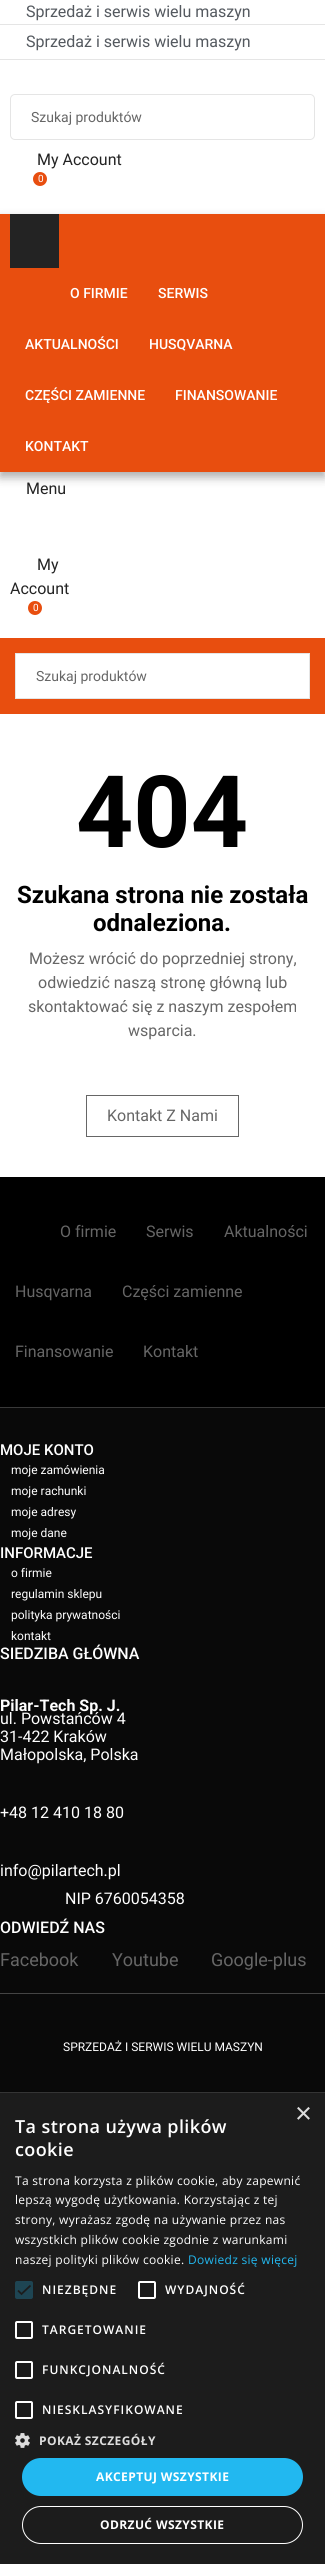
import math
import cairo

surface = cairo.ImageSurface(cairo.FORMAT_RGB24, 325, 2564)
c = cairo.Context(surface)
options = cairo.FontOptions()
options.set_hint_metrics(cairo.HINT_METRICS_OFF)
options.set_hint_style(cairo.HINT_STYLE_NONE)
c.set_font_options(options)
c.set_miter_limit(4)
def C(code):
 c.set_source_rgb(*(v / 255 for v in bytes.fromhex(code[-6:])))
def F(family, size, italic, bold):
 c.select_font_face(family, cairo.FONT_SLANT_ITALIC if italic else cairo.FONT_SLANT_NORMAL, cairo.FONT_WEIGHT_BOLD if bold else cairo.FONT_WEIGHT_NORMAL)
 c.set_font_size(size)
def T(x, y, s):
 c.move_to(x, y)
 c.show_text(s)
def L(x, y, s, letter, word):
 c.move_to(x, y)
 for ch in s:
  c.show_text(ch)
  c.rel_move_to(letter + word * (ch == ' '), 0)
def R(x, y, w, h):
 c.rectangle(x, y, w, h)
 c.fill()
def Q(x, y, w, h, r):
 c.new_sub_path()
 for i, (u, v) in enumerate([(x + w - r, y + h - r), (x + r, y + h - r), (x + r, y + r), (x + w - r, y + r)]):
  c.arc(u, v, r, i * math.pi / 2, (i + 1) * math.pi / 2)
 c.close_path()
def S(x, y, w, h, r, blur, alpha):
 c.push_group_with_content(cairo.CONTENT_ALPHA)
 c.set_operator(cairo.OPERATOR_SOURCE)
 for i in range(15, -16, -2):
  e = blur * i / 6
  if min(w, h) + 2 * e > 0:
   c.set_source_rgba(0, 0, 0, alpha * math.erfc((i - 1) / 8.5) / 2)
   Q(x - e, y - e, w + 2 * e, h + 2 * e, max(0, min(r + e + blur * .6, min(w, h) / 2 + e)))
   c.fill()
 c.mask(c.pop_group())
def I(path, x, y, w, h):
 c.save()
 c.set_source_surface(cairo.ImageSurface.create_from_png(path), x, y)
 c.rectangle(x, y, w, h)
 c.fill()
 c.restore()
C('ffffff')
c.paint()
C('e5e5e5')
R(0,24,325,1)
F('Roboto',16,0,0)
C('54595f')
T(26,17,'Sprzedaż i serwis wielu maszyn')
C('e5e5e5')
R(0,59,325,1)
C('54595f')
T(26,47,'Sprzedaż i serwis wielu maszyn')
Q(10.5,94.5,304,45,4.5)
C('e5e5e5')
c.set_line_width(1)
c.stroke()
F('Roboto',14,0,0)
C('666666')
T(31,122,'Szukaj produktów')
F('Roboto',16,0,0)
C('232323')
T(37,165,'My Account')
C('e84e0f')
c.new_path()
c.arc(40,179,7,0,2 * math.pi)
c.fill()
F('Roboto',10,0,0)
C('ffffff')
T(38,182,'0')
C('000000')
S(0,219,325,258,0,5,.33)
C('e84e0f')
R(0,214,325,258)
C('232323')
R(10,214,49,54)
F('Roboto Medium',14,0,0)
C('ffffff')
T(70,298,'O FIRMIE')
T(158,298,'SERWIS')
T(25,349,'AKTUALNOŚCI')
T(149,349,'HUSQVARNA')
T(25,400,'CZĘŚCI ZAMIENNE')
T(175,400,'FINANSOWANIE')
T(25,451,'KONTAKT')
F('Roboto',16,0,0)
C('232323')
T(26,494,'Menu')
T(37,570,'My')
T(10,594,'Account')
C('e84e0f')
c.new_path()
c.arc(35,608,7,0,2 * math.pi)
c.fill()
F('Roboto',10,0,0)
C('ffffff')
T(33,611,'0')
C('e84e0f')
R(0,638,325,76)
C('ffffff')
c.rectangle(15.5,653.5,294,45)
c.fill_preserve()
C('e5e5e5')
c.stroke()
F('Roboto',14,0,0)
C('666666')
T(36,681,'Szukaj produktów')
F('Roboto',100,0,1)
C('000000')
T(76,847,'404')
F('Roboto',24,0,1)
T(17,903,'Szukana strona nie została')
T(93,931,'odnaleziona.')
F('Roboto',16,0,0)
C('666666')
T(29,964,'Możesz wrócić do poprzedniej strony,')
T(38,988,'odwiedzić naszą stronę główną lub')
T(28,1012,'skontaktować się z naszym zespołem')
T(128,1036,'wsparcia.')
c.rectangle(86.5,1095.5,152,41)
c.stroke()
T(107,1121,'Kontakt Z Nami')
C('000000')
R(0,1177,325,230)
C('393939')
R(0,1407,325,1)
C('666666')
T(60,1237,'O firmie')
T(146,1237,'Serwis')
T(224,1237,'Aktualności')
T(15,1297,'Husqvarna')
T(122,1297,'Części zamienne')
T(15,1357,'Finansowanie')
T(143,1357,'Kontakt')
C('090909')
R(0,1408,325,684)
F('Roboto Medium',15,0,0)
C('ffffff')
T(0,1455,'MOJE KONTO')
F('Roboto',12,0,0)
T(11,1474,'moje zamówienia')
T(11,1495,'moje rachunki')
T(11,1516,'moje adresy')
T(11,1537,'moje dane')
F('Roboto Medium',15,0,0)
T(0,1558,'INFORMACJE')
F('Roboto',12,0,0)
T(11,1577,'o firmie')
T(11,1598,'regulamin sklepu')
T(11,1619,'polityka prywatności')
T(11,1640,'kontakt')
F('Roboto Medium',16,0,0)
T(0,1659,'SIEDZIBA GŁÓWNA')
F('Roboto',16,0,1)
T(0,1711,'Pilar-Tech Sp. J.')
F('Roboto',16,0,0)
T(0,1724,'ul. Powstańców 4')
T(0,1742,'31-422 Kraków')
T(0,1760,'Małopolska, Polska')
T(0,1818,'+48 12 410 18 80')
T(0,1876,'info@pilartech.pl')
T(65,1904,'NIP 6760054358')
F('Roboto Medium',16,0,0)
T(0,1933,'ODWIEDŹ NAS')
F('Roboto',18,0,0)
C('666666')
T(0,1966,'Facebook')
T(112,1966,'Youtube')
T(211,1966,'Google-plus')
C('444444')
R(0,1993,325,1)
F('Roboto',12,0,0)
C('ffffff')
T(63,2051,'SPRZEDAŻ I SERWIS WIELU MASZYN')
C('393939')
R(0,2092,325,1)
C('000000')
S(1,2095,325,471,0,4,.35)
C('1c1c1c')
R(0,2093,325,471)
F('Liberation Sans',29,0,0)
C('dddddd')
T(295,2123,'×')
F('Open Sans SemiBold',18,0,0)
C('ffffff')
L(15,2133,'Ta strona używa plików',.4,0)
L(15,2156,'cookie',.4,0)
F('Open Sans',12,0,0)
L(15,2185,'Ta strona korzysta z plików cookie, aby zapewnić',.3,0)
L(15,2204,'lepszą wygodę użytkowania. Korzystając z tej',.3,0)
L(15,2224,'strony, wyrażasz zgodę na używanie przez nas',.3,0)
L(15,2244,'wszystkich plików cookie zgodnie z warunkami',.3,0)
L(15,2264,'naszej polityki plików cookie.',.3,0)
C('22b8f0')
L(188,2264,'Dowiedz się więcej',.3,0)
C('1e4553')
Q(15,2281,18,18,2)
c.fill()
c.new_path()
c.move_to(18,2290.5)
c.line_to(21.5,2294)
c.line_to(30.5,2285.5)
C('1c1c1c')
c.set_line_width(1.8)
c.stroke()
F('Open Sans SemiBold',12,0,0)
C('ffffff')
L(42,2294,'NIEZBĘDNE',1,0)
Q(139,2282,16,16,1)
c.set_line_width(2)
c.stroke()
L(165,2294,'WYDAJNOŚĆ',1,0)
Q(16,2322,16,16,1)
c.stroke()
L(42,2334,'TARGETOWANIE',1,0)
Q(16,2362,16,16,1)
c.stroke()
L(42,2374,'FUNKCJONALNOŚĆ',1,0)
Q(16,2402,16,16,1)
c.stroke()
L(42,2414,'NIESKLASYFIKOWANE',1,0)
I('1.png',15,2433,15,15)
F('Open Sans',12,0,1)
C('dddddd')
L(39,2445,'POKAŻ SZCZEGÓŁY',.4,0)
C('22b8f0')
Q(22,2458,281,38,19)
c.fill()
C('ffffff')
L(96,2481,'AKCEPTUJ WSZYSTKIE',.4,0)
Q(22.5,2506.5,280,37,18.5)
c.set_line_width(1)
c.stroke()
L(100,2529,'ODRZUĆ WSZYSTKIE',.4,0)
surface.write_to_png('o.png')
